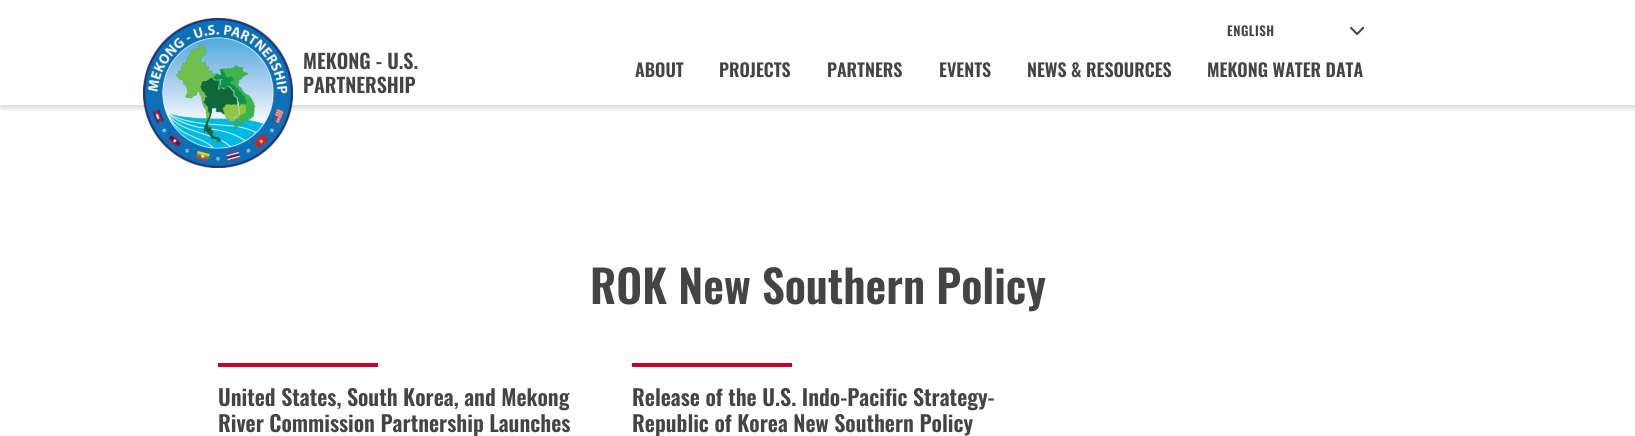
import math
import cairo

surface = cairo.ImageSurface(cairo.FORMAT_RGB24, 1635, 436)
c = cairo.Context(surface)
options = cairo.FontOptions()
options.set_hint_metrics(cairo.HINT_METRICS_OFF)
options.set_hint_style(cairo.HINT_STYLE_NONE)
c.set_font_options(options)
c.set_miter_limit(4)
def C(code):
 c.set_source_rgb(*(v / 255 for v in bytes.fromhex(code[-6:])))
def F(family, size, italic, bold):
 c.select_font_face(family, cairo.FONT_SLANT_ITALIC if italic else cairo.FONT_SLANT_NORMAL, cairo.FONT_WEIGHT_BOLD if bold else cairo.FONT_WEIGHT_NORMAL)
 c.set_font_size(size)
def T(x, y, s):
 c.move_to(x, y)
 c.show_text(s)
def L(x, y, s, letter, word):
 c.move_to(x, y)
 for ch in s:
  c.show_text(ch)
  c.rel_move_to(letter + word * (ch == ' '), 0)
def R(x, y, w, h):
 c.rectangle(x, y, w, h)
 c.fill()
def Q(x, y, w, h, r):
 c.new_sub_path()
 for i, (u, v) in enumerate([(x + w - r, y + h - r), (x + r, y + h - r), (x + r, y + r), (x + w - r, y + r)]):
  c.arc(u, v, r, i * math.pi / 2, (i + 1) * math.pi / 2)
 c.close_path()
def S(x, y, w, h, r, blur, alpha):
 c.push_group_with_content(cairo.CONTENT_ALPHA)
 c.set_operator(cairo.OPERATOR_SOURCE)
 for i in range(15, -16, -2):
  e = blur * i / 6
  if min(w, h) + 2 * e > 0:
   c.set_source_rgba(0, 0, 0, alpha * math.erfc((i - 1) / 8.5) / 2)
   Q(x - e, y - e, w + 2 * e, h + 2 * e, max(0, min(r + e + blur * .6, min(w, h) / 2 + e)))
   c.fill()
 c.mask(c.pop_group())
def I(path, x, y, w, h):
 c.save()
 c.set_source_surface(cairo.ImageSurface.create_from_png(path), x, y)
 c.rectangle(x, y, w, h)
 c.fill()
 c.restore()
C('ffffff')
c.paint()
c.save()
c.rectangle(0,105,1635,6)
c.clip()
C('000000')
S(0,3,1635,105,0,3,.16)
c.restore()
I('1.png',143,18,150,150)
F('Oswald SemiBold',20,0,0)
C('464343')
T(303,69,'MEKONG - U.S.')
T(303,93,'PARTNERSHIP')
F('Oswald SemiBold',13,0,0)
L(1227,36,'ENGLISH',.5,0)
I('2.png',1350,26,15,9)
F('Oswald SemiBold',18,0,0)
T(635,77,'ABOUT')
T(719,77,'PROJECTS')
T(827,77,'PARTNERS')
T(939,77,'EVENTS')
T(1027,77,'NEWS & RESOURCES')
T(1207,77,'MEKONG WATER DATA')
F('Oswald SemiBold',45,0,0)
T(590,304,'ROK New Southern Policy')
C('c6022a')
R(218,363,160,4)
F('Oswald SemiBold',22,0,0)
C('464343')
T(218,406,'United States, South Korea, and Mekong')
T(218,432,'River Commission Partnership Launches')
C('c6022a')
R(632,363,160,4)
C('464343')
T(632,406,'Release of the U.S. Indo-Pacific Strategy-')
T(632,432,'Republic of Korea New Southern Policy')
surface.write_to_png('o.png')
